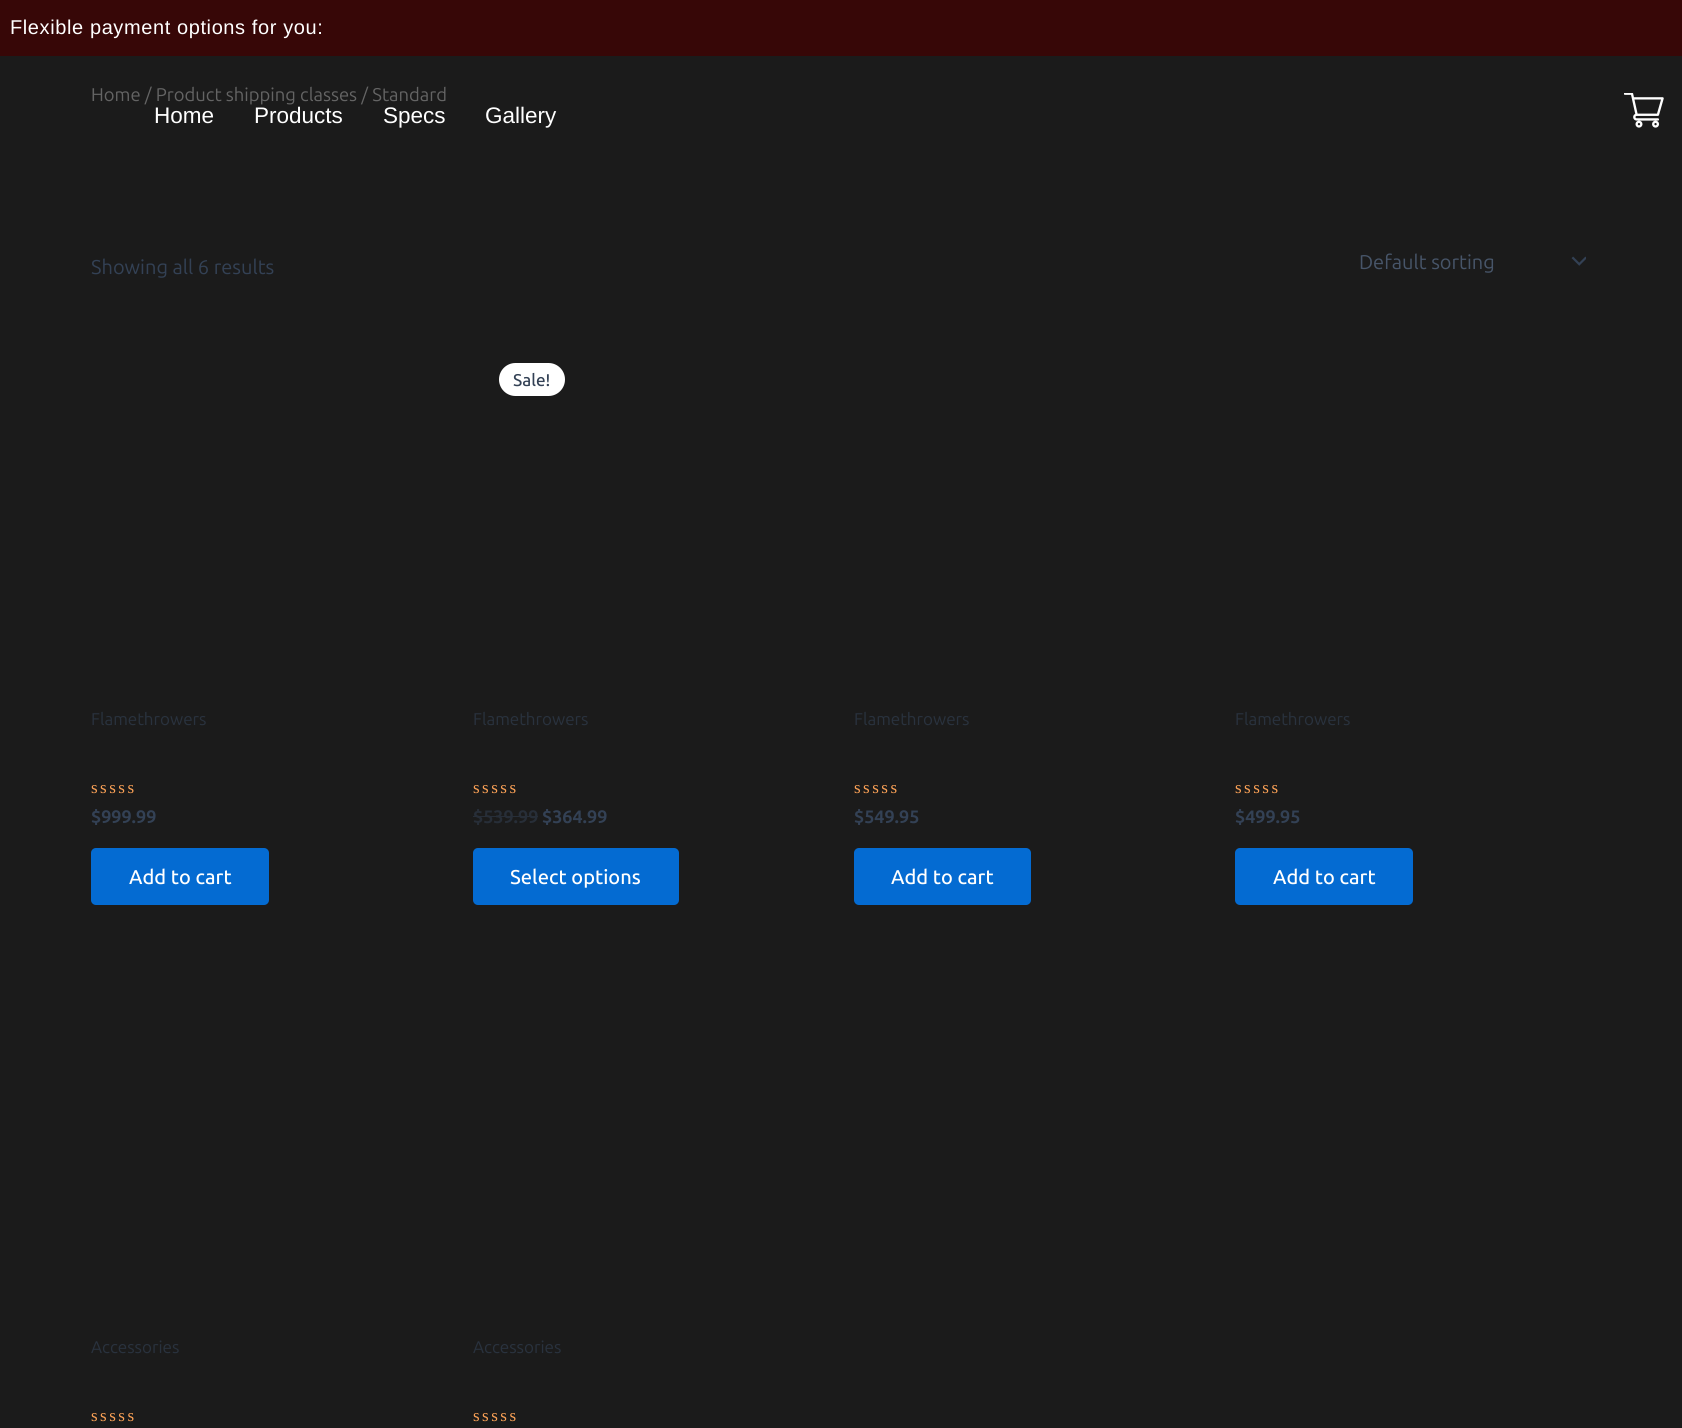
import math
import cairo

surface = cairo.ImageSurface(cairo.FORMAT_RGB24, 1682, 1428)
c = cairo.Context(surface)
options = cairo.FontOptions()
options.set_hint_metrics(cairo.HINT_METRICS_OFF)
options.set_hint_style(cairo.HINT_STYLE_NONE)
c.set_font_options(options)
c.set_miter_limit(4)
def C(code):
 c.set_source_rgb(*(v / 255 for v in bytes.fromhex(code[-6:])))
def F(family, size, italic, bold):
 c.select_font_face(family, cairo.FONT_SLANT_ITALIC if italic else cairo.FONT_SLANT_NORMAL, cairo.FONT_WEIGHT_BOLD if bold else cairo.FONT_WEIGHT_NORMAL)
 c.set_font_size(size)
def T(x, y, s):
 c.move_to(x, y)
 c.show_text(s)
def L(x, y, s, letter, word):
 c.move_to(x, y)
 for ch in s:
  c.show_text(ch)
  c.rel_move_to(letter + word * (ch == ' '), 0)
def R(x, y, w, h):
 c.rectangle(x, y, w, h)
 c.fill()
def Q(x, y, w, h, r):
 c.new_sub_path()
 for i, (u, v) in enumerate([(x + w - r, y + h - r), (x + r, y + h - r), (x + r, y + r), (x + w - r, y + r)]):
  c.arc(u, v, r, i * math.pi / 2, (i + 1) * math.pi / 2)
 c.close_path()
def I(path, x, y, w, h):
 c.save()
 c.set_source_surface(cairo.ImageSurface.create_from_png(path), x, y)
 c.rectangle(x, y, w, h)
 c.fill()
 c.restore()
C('1b1b1b')
c.paint()
C('370707')
R(0,0,1682,56)
F('Liberation Sans',20,0,0)
C('ffffff')
L(10,34,'Flexible payment options for you:',.6,0)
F('Ubuntu',18.4,0,0)
C('777777')
T(91,101,'Home / Product shipping classes / Standard')
c.set_source_rgba(0.106,0.106,0.106,0.2)
R(93,86,353,19)
F('Liberation Sans',22.5,0,0)
C('ffffff')
T(154,123,'Home')
T(254,123,'Products')
T(383,123,'Specs')
T(485,123,'Gallery')
I('1.png',1624,93,40,35)
F('Ubuntu',20,0,0)
C('334155')
T(91,274,'Showing all 6 results')
I('2.png',1571,256,15,10)
C('475569')
T(1359,269,'Default sorting')
F('Ubuntu',17,0,0)
C('29323e')
T(91,725,'Flamethrowers')
F('Liberation Serif',17,0,0)
C('fda256')
L(91,793,'sssss',2.5,0)
F('Ubuntu',18,0,1)
C('334155')
T(91,823,'$999.99')
C('046bd2')
Q(91,848,178,57,5)
c.fill()
F('Ubuntu Medium',20,0,0)
C('ffffff')
T(129,884,'Add to cart')
Q(499,363,66,33,16.5)
c.fill()
F('Ubuntu Medium',17,0,0)
C('334155')
T(513,386,'Sale!')
F('Ubuntu',17,0,0)
C('29323e')
T(473,725,'Flamethrowers')
F('Liberation Serif',17,0,0)
C('fda256')
L(473,793,'sssss',2.5,0)
F('Ubuntu',18,0,1)
C('272e38')
T(473,823,'$539.99')
R(473,816,65,1)
C('334155')
T(542,823,'$364.99')
C('046bd2')
Q(473,848,206,57,5)
c.fill()
F('Ubuntu Medium',20,0,0)
C('ffffff')
T(510,884,'Select options')
F('Ubuntu',17,0,0)
C('29323e')
T(854,725,'Flamethrowers')
F('Liberation Serif',17,0,0)
C('fda256')
L(854,793,'sssss',2.5,0)
F('Ubuntu',18,0,1)
C('334155')
T(854,823,'$549.95')
C('046bd2')
Q(854,848,177,57,5)
c.fill()
F('Ubuntu Medium',20,0,0)
C('ffffff')
T(891,884,'Add to cart')
F('Ubuntu',17,0,0)
C('29323e')
T(1235,725,'Flamethrowers')
F('Liberation Serif',17,0,0)
C('fda256')
L(1235,793,'sssss',2.5,0)
F('Ubuntu',18,0,1)
C('334155')
T(1235,823,'$499.95')
C('046bd2')
Q(1235,848,178,57,5)
c.fill()
F('Ubuntu Medium',20,0,0)
C('ffffff')
T(1273,884,'Add to cart')
F('Ubuntu',17,0,0)
C('29323e')
T(91,1353,'Accessories')
F('Liberation Serif',17,0,0)
C('fda256')
L(91,1421,'sssss',2.5,0)
F('Ubuntu',17,0,0)
C('29323e')
T(473,1353,'Accessories')
F('Liberation Serif',17,0,0)
C('fda256')
L(473,1421,'sssss',2.5,0)
surface.write_to_png('o.png')
